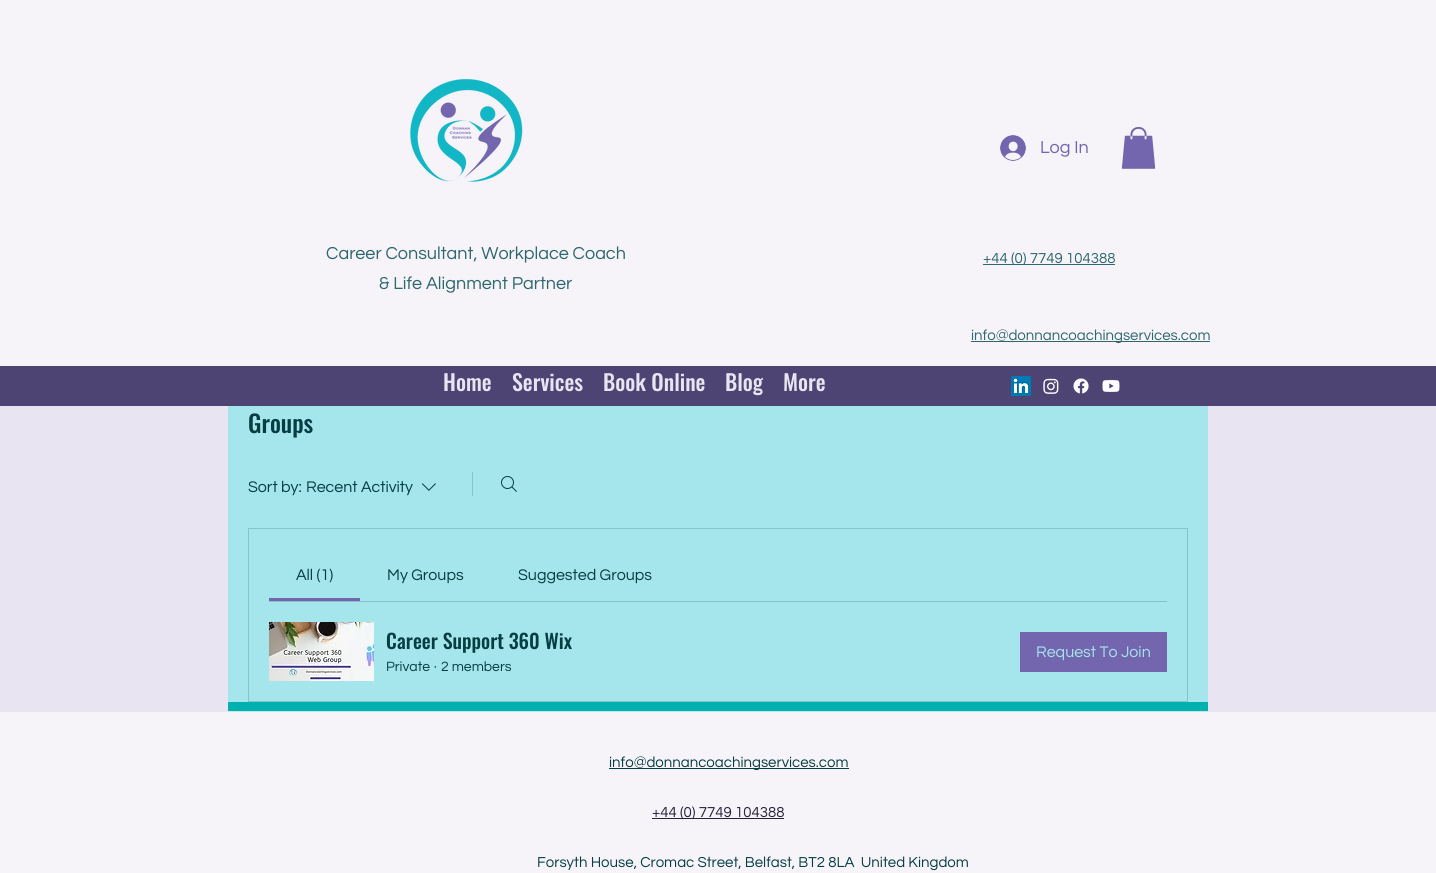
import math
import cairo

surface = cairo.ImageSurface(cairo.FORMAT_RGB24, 1436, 873)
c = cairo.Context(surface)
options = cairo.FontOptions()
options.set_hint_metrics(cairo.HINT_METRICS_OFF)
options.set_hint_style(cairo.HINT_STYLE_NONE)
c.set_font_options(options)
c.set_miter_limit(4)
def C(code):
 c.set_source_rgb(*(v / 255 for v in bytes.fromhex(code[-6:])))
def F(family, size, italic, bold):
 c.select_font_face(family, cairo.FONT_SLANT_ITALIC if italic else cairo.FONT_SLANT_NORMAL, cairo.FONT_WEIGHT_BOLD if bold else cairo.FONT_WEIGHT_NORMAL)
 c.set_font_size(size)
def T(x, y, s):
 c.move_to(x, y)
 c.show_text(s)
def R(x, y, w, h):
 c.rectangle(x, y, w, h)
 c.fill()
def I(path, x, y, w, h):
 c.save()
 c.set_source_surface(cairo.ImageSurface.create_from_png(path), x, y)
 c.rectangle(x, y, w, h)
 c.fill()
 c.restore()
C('e9e4f1')
c.paint()
C('f6f3f9')
R(0,0,1436,366)
I('1.png',410,79,113,103)
I('2.png',1000,135,26,26)
F('Questrial',18,0,0)
C('7466ae')
T(1040,153,'Log In')
I('3.png',1121,127,35,42)
C('2e676d')
T(326,259,'Career Consultant, Workplace Coach')
T(379,289,'& Life Alignment Partner')
R(983,264,132,1)
F('Questrial',15,0,0)
T(983,263,'+44 (0) 7749 104388')
R(971,341,239,1)
T(971,340,'info@donnancoachingservices.com')
C('4d4474')
R(0,366,1436,40)
F('Oswald Medium',22,0,0)
C('e9e4f1')
T(443,391,'Home')
T(512,391,'Services')
T(603,391,'Book Online')
T(725,391,'Blog')
T(783,391,'More')
I('4.png',1011,376,20,20)
I('5.png',1043,378,16,16)
I('6.png',1073,378,16,16)
I('7.png',1102,379,18,13)
C('a4e6ec')
R(228,406,980,296)
F('Oswald Medium',24,0,0)
C('063d42')
T(248,433,'Groups')
F('Questrial',16,0,0)
T(248,492,'Sort by:')
T(306,492,'Recent Activity')
I('8.png',421,483,15,8)
C('84c4ca')
R(472,472,1,24)
I('9.png',501,476,16,16)
c.rectangle(248.5,528.5,939,173)
c.set_line_width(1)
c.stroke()
R(269,601,898,1)
C('7466ae')
R(269,598,91,3)
C('063d42')
T(296,580,'All (1)')
T(387,580,'My Groups')
T(518,580,'Suggested Groups')
I('10.png',269,622,105,59)
F('Oswald Medium',20,0,0)
T(386,649,'Career Support 360 Wix')
F('Questrial',14,0,0)
T(386,671,'Private')
T(434,671,'·')
T(441,671,'2 members')
C('7466ae')
R(1020,632,147,40)
F('Questrial',16,0,0)
C('a4e6ec')
T(1036,657,'Request To Join')
C('00b1b0')
R(228,702,980,9)
C('bfeceb')
R(228,711,980,1)
C('f6f4f9')
R(0,712,1436,161)
C('063d42')
R(609,768,240,1)
F('Questrial',15,0,0)
T(609,767,'info@donnancoachingservices.com')
C('27223a')
R(652,818,132,1)
T(652,817,'+44 (0) 7749 104388')
C('063d42')
T(537,867,'Forsyth House, Cromac Street, Belfast, BT2 8LA  United Kingdom')
surface.write_to_png('o.png')
